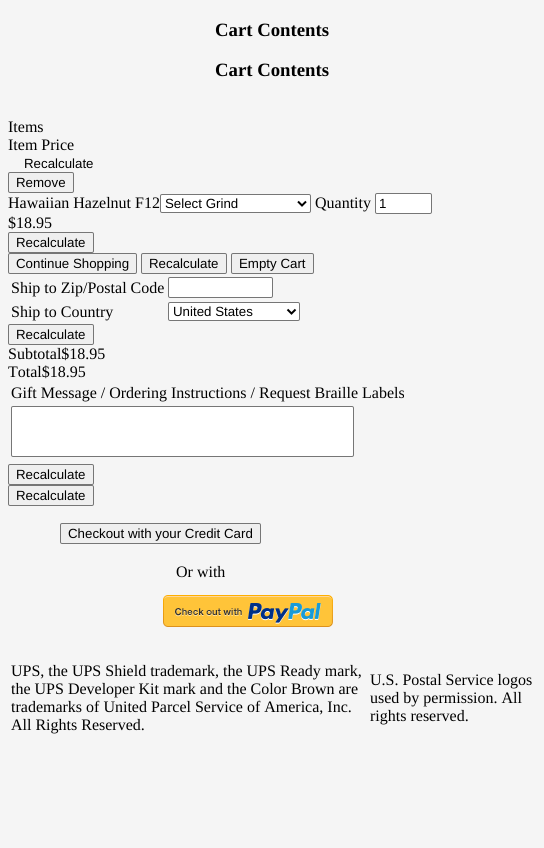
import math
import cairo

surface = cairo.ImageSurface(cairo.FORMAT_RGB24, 544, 848)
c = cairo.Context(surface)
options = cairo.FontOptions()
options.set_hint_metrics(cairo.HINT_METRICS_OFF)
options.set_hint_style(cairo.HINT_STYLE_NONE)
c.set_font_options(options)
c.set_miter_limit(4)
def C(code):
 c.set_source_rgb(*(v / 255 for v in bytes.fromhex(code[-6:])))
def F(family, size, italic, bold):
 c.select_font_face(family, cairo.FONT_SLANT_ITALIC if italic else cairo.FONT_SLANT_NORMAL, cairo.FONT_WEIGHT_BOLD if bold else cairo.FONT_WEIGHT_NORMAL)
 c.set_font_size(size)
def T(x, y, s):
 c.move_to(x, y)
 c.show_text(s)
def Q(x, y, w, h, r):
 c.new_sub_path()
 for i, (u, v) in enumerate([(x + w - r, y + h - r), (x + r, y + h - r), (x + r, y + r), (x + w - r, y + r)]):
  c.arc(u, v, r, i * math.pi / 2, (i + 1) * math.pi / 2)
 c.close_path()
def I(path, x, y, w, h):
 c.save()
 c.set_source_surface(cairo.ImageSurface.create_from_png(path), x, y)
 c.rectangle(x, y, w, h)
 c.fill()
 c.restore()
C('f5f5f5')
c.paint()
F('Liberation Serif',18.75,0,1)
C('000000')
T(215,36,'Cart Contents')
T(215,76,'Cart Contents')
F('Liberation Serif',16,0,0)
T(8,132,'Items')
T(8,150,'Item Price')
F('Liberation Sans',13.3,0,0)
T(24,168,'Recalculate')
C('efefef')
Q(8.5,172.5,65,20,1.5)
c.fill_preserve()
C('767676')
c.set_line_width(1)
c.stroke()
C('000000')
T(16,187,'Remove')
F('Liberation Serif',16,0,0)
T(8,208,'Hawaiian Hazelnut F12')
C('ffffff')
Q(160.5,194.5,150,18,1.5)
c.fill_preserve()
C('767676')
c.stroke()
c.new_path()
c.move_to(298,201.5)
c.line_to(302,205.5)
c.line_to(306,201.5)
C('000000')
c.set_line_width(2)
c.stroke()
F('Liberation Sans',13.3,0,0)
T(165,208,'Select Grind')
F('Liberation Serif',16,0,0)
T(315,208,'Quantity')
C('ffffff')
Q(375.5,193.5,56,20,1.5)
c.fill_preserve()
C('767676')
c.set_line_width(1)
c.stroke()
F('Liberation Sans',13.3,0,0)
C('000000')
T(379,208,'1')
F('Liberation Serif',16,0,0)
T(8,228,'$18.95')
C('efefef')
Q(8.5,232.5,85,20,1.5)
c.fill_preserve()
C('767676')
c.stroke()
F('Liberation Sans',13.3,0,0)
C('000000')
T(16,247,'Recalculate')
C('efefef')
Q(8.5,253.5,128,20,1.5)
c.fill_preserve()
C('767676')
c.stroke()
C('000000')
T(16,268,'Continue Shopping')
C('efefef')
Q(141.5,253.5,85,20,1.5)
c.fill_preserve()
C('767676')
c.stroke()
C('000000')
T(149,268,'Recalculate')
C('efefef')
Q(231.5,253.5,82,20,1.5)
c.fill_preserve()
C('767676')
c.stroke()
C('000000')
T(239,268,'Empty Cart')
F('Liberation Serif',16,0,0)
T(11,293,'Ship to Zip/Postal Code')
C('ffffff')
Q(168.5,277.5,104,20,1.5)
c.fill_preserve()
C('767676')
c.stroke()
C('000000')
T(11,317,'Ship to Country')
C('ffffff')
Q(168.5,302.5,131,18,1.5)
c.fill_preserve()
C('767676')
c.stroke()
c.new_path()
c.move_to(287.5,309.5)
c.line_to(291.5,313.5)
c.line_to(295.5,309.5)
C('000000')
c.set_line_width(2)
c.stroke()
F('Liberation Sans',13.3,0,0)
T(173,316,'United States')
C('efefef')
Q(8.5,324.5,85,20,1.5)
c.fill_preserve()
C('767676')
c.set_line_width(1)
c.stroke()
C('000000')
T(16,339,'Recalculate')
F('Liberation Serif',16,0,0)
T(8,359,'Subtotal$18.95')
T(8,377,'Total$18.95')
T(11,398,'Gift Message / Ordering Instructions / Request Braille Labels')
C('ffffff')
Q(11.5,406.5,342,50,1.5)
c.fill_preserve()
C('767676')
c.stroke()
C('efefef')
Q(8.5,464.5,85,20,1.5)
c.fill_preserve()
C('767676')
c.stroke()
F('Liberation Sans',13.3,0,0)
C('000000')
T(16,479,'Recalculate')
C('efefef')
Q(8.5,485.5,85,20,1.5)
c.fill_preserve()
C('767676')
c.stroke()
C('000000')
T(16,500,'Recalculate')
C('efefef')
Q(60.5,523.5,200,20,1.5)
c.fill_preserve()
C('767676')
c.stroke()
C('000000')
T(68,538,'Checkout with your Credit Card')
F('Liberation Serif',16,0,0)
T(176,577,'Or with')
I('1.png',163,595,170,32)
T(11,676,'UPS, the UPS Shield trademark, the UPS Ready mark,')
T(11,694,'the UPS Developer Kit mark and the Color Brown are')
T(11,712,'trademarks of United Parcel Service of America, Inc.')
T(11,730,'All Rights Reserved.')
T(370,685,'U.S. Postal Service logos')
T(370,703,'used by permission. All')
T(370,721,'rights reserved.')
surface.write_to_png('o.png')
